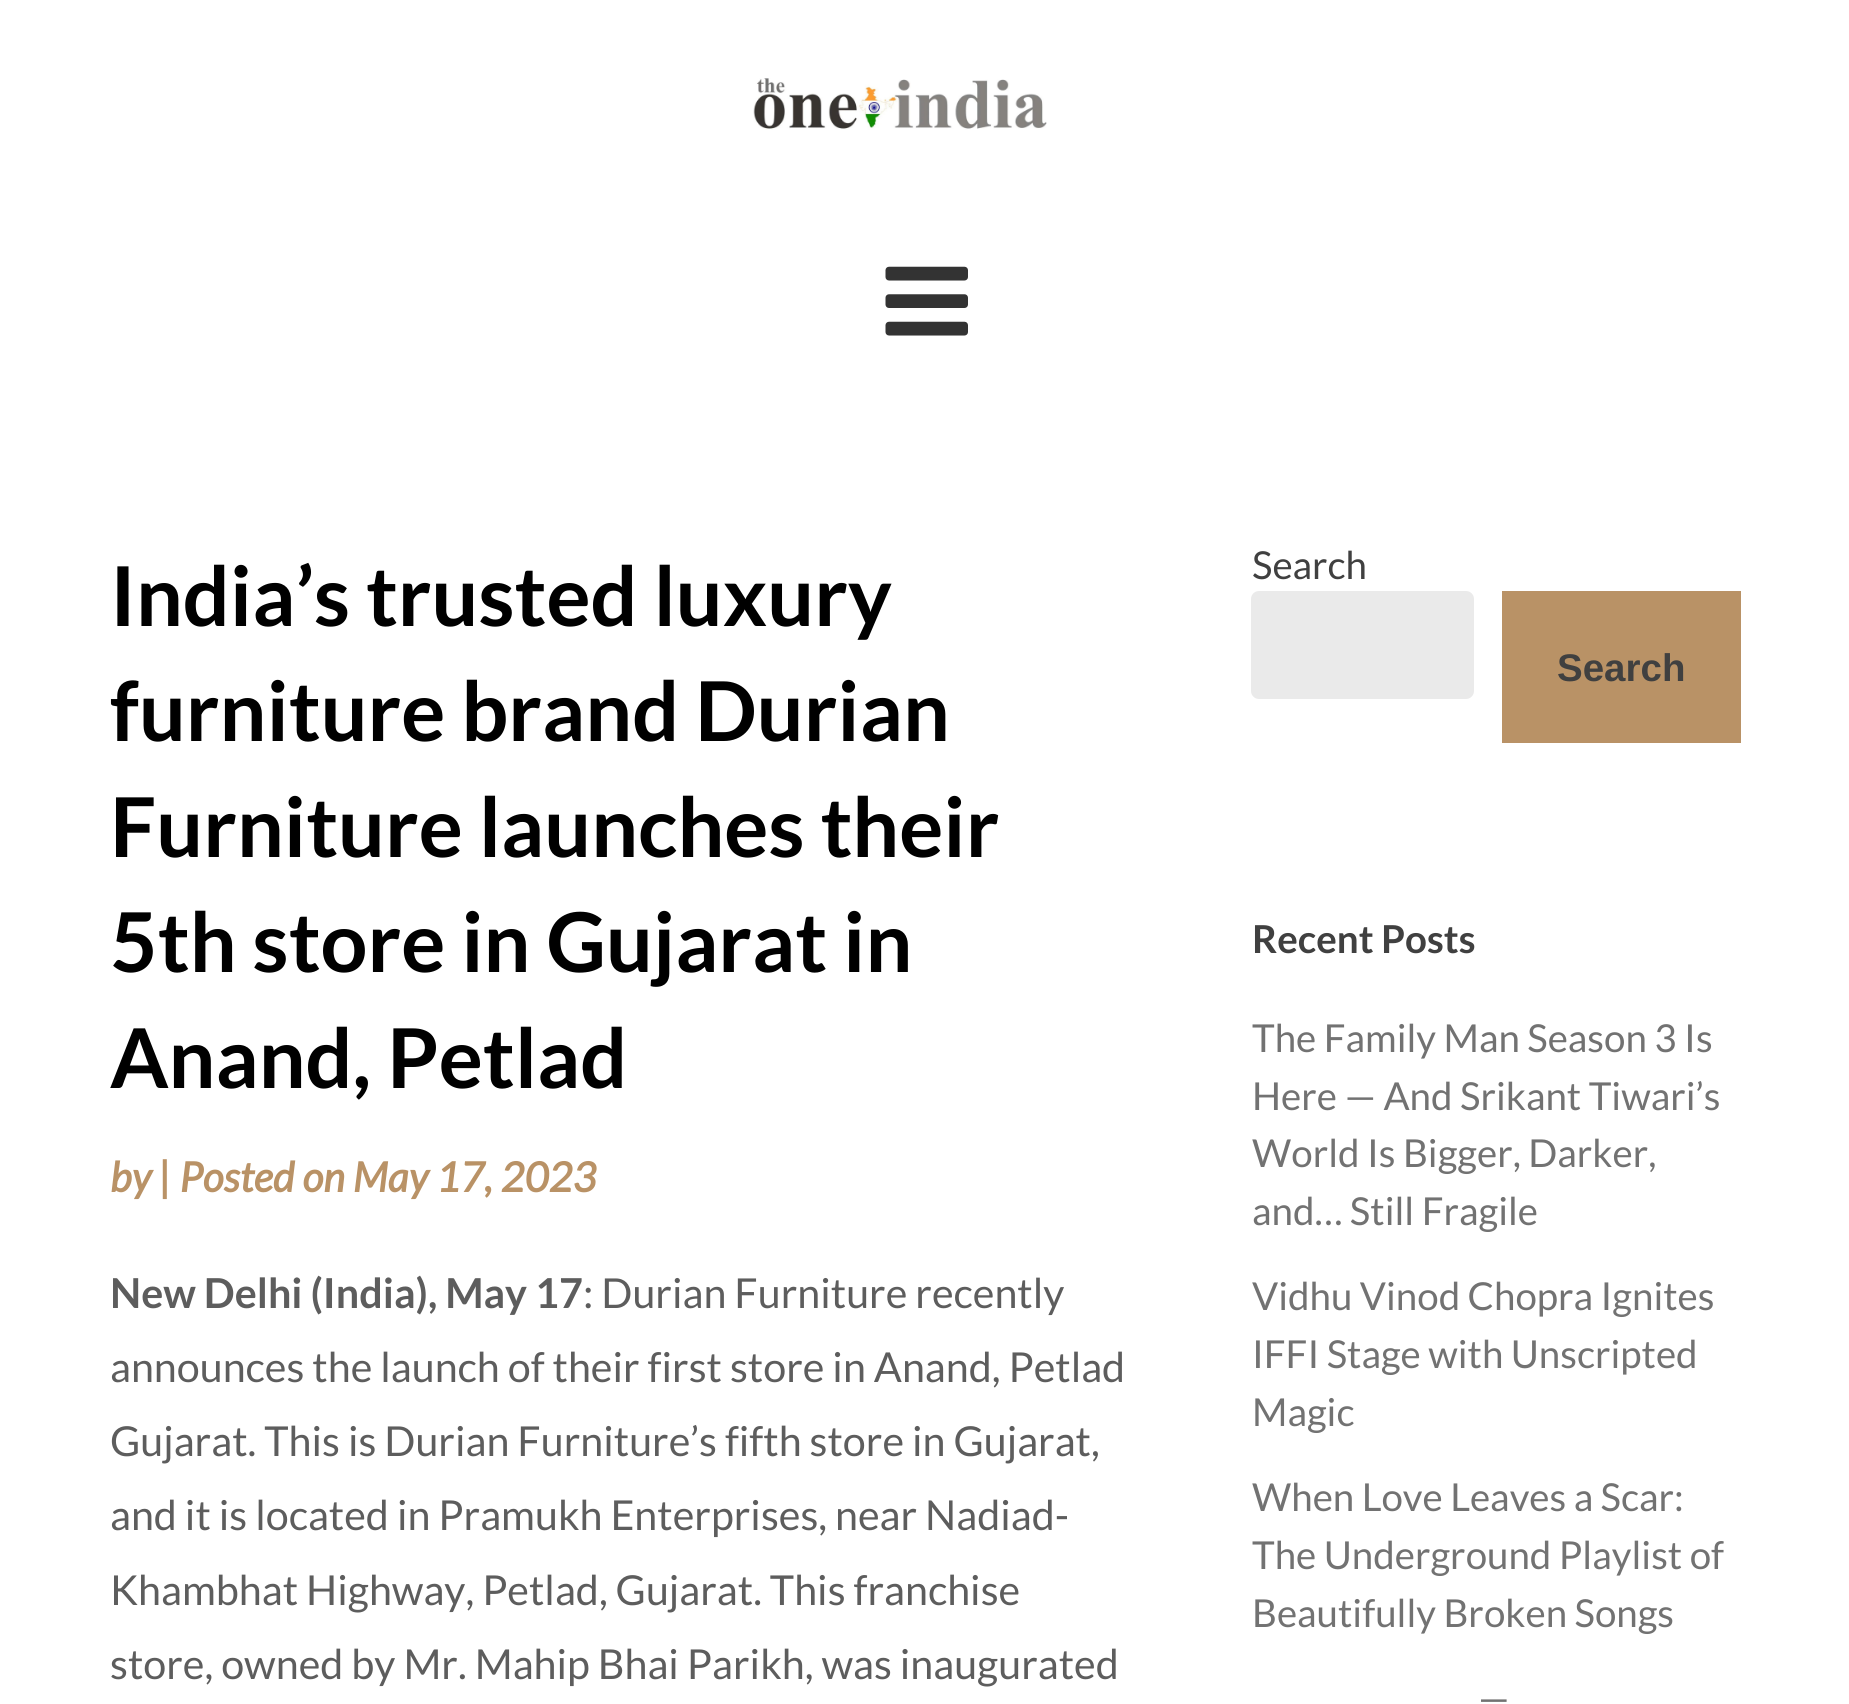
import math
import cairo

surface = cairo.ImageSurface(cairo.FORMAT_RGB24, 1849, 1704)
c = cairo.Context(surface)
options = cairo.FontOptions()
options.set_hint_metrics(cairo.HINT_METRICS_OFF)
options.set_hint_style(cairo.HINT_STYLE_NONE)
c.set_font_options(options)
c.set_miter_limit(4)
def C(code):
 c.set_source_rgb(*(v / 255 for v in bytes.fromhex(code[-6:])))
def F(family, size, italic, bold):
 c.select_font_face(family, cairo.FONT_SLANT_ITALIC if italic else cairo.FONT_SLANT_NORMAL, cairo.FONT_WEIGHT_BOLD if bold else cairo.FONT_WEIGHT_NORMAL)
 c.set_font_size(size)
def T(x, y, s):
 c.move_to(x, y)
 c.show_text(s)
def R(x, y, w, h):
 c.rectangle(x, y, w, h)
 c.fill()
def Q(x, y, w, h, r):
 c.new_sub_path()
 for i, (u, v) in enumerate([(x + w - r, y + h - r), (x + r, y + h - r), (x + r, y + r), (x + w - r, y + r)]):
  c.arc(u, v, r, i * math.pi / 2, (i + 1) * math.pi / 2)
 c.close_path()
def I(path, x, y, w, h):
 c.save()
 c.set_source_surface(cairo.ImageSurface.create_from_png(path), x, y)
 c.rectangle(x, y, w, h)
 c.fill()
 c.restore()
C('ffffff')
c.paint()
I('1.png',753,78,294,52)
I('2.png',885,266,83,70)
F('Lato',82.5,0,1)
C('000000')
T(110,626,'India’s trusted luxury')
T(110,741,'furniture brand Durian')
T(110,857,'Furniture launches their')
T(110,972,'5th store in Gujarat in')
T(110,1088,'Anand, Petlad')
F('Lato',41.25,1,1)
C('b99266')
T(110,1192,'by | Posted on May 17, 2023')
F('Lato',41.25,0,1)
C('5d5d5d')
T(110,1308,'New Delhi (India), May 17')
F('Lato',41.25,0,0)
T(583,1308,': Durian Furniture recently')
T(110,1382,'announces the launch of their first store in Anand, Petlad')
T(110,1456,'Gujarat. This is Durian Furniture’s fifth store in Gujarat,')
T(110,1530,'and it is located in Pramukh Enterprises, near Nadiad-')
T(110,1605,'Khambhat Highway, Petlad, Gujarat. This franchise')
T(110,1679,'store, owned by Mr. Mahip Bhai Parikh, was inaugurated')
F('Lato',38.5,0,0)
C('404040')
T(1252,579,'Search')
C('eaeaea')
Q(1251,591,223,108,8)
c.fill()
C('b99266')
R(1502,591,239,152)
F('Liberation Sans',38.5,0,1)
C('404040')
T(1557,681,'Search')
F('Lato',38.5,0,1)
T(1252,953,'Recent Posts')
F('Lato',38.5,0,0)
C('727272')
T(1252,1052,'The Family Man Season 3 Is')
T(1252,1110,'Here — And Srikant Tiwari’s')
T(1252,1167,'World Is Bigger, Darker,')
T(1252,1225,'and… Still Fragile')
T(1252,1310,'Vidhu Vinod Chopra Ignites')
T(1252,1368,'IFFI Stage with Unscripted')
T(1252,1426,'Magic')
T(1252,1511,'When Love Leaves a Scar:')
T(1252,1569,'The Underground Playlist of')
T(1252,1627,'Beautifully Broken Songs')
T(1478,1712,'—')
surface.write_to_png('o.png')
